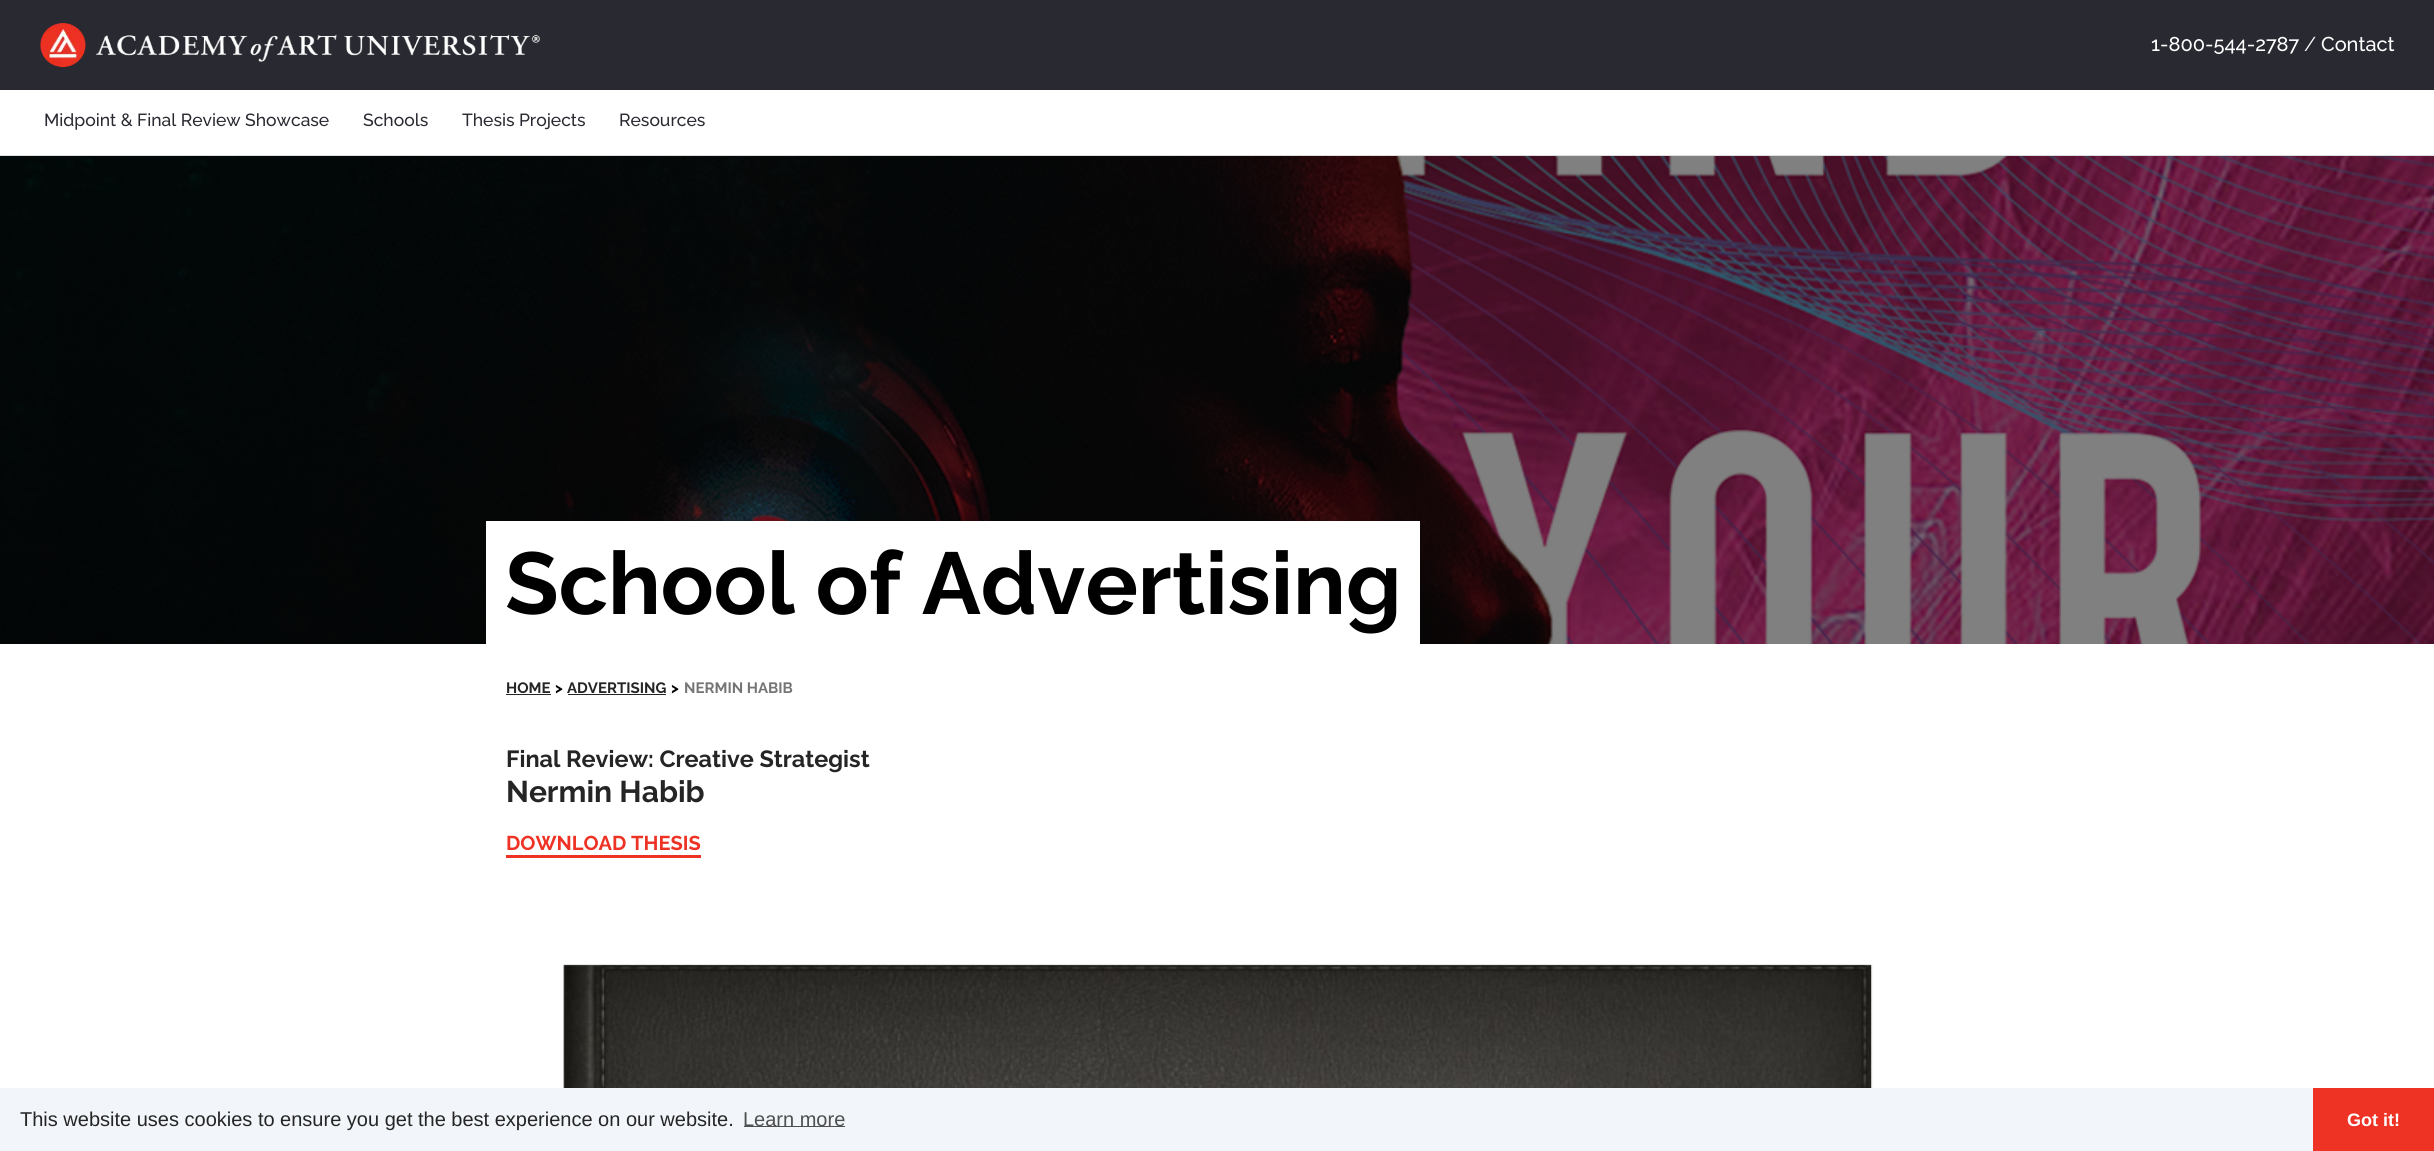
import math
import cairo

surface = cairo.ImageSurface(cairo.FORMAT_RGB24, 2434, 1151)
c = cairo.Context(surface)
options = cairo.FontOptions()
options.set_hint_metrics(cairo.HINT_METRICS_OFF)
options.set_hint_style(cairo.HINT_STYLE_NONE)
c.set_font_options(options)
c.set_miter_limit(4)
def C(code):
 c.set_source_rgb(*(v / 255 for v in bytes.fromhex(code[-6:])))
def F(family, size, italic, bold):
 c.select_font_face(family, cairo.FONT_SLANT_ITALIC if italic else cairo.FONT_SLANT_NORMAL, cairo.FONT_WEIGHT_BOLD if bold else cairo.FONT_WEIGHT_NORMAL)
 c.set_font_size(size)
def T(x, y, s):
 c.move_to(x, y)
 c.show_text(s)
def R(x, y, w, h):
 c.rectangle(x, y, w, h)
 c.fill()
def Q(x, y, w, h, r):
 c.new_sub_path()
 for i, (u, v) in enumerate([(x + w - r, y + h - r), (x + r, y + h - r), (x + r, y + r), (x + w - r, y + r)]):
  c.arc(u, v, r, i * math.pi / 2, (i + 1) * math.pi / 2)
 c.close_path()
def S(x, y, w, h, r, blur, alpha):
 c.push_group_with_content(cairo.CONTENT_ALPHA)
 c.set_operator(cairo.OPERATOR_SOURCE)
 for i in range(15, -16, -2):
  e = blur * i / 6
  if min(w, h) + 2 * e > 0:
   c.set_source_rgba(0, 0, 0, alpha * math.erfc((i - 1) / 8.5) / 2)
   Q(x - e, y - e, w + 2 * e, h + 2 * e, max(0, min(r + e + blur * .6, min(w, h) / 2 + e)))
   c.fill()
 c.mask(c.pop_group())
def I(path, x, y, w, h):
 c.save()
 c.set_source_surface(cairo.ImageSurface.create_from_png(path), x, y)
 c.rectangle(x, y, w, h)
 c.fill()
 c.restore()
C('ffffff')
c.paint()
C('292931')
R(0,0,2434,90)
I('1.png',40,23,500,45)
F('Raleway Medium',20,0,0)
C('ffffff')
T(2151,51,'1-800-544-2787')
F('Raleway',20,0,0)
T(2304,51,'/')
F('Raleway Medium',20,0,0)
T(2321,51,'Contact')
C('dddddd')
R(0,155,2434,1)
F('Raleway Medium',17.5,0,0)
C('292931')
T(44,126,'Midpoint & Final Review Showcase')
T(363,126,'Schools')
T(462,126,'Thesis Projects')
T(619,126,'Resources')
I('2.png',0,156,2434,488)
c.save()
c.rectangle(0,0,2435,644)
c.clip()
C('000000')
S(493,538,921,110,0,6,.2)
c.restore()
C('252525')
R(506,694,45,1)
R(568,694,98,1)
c.save()
c.rectangle(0,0,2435,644)
c.clip()
C('000000')
S(480,523,946,135,0,19,.12)
S(484,539,939,127,0,15,.14)
c.restore()
C('ffffff')
R(486,521,934,123)
F('Raleway',87.5,0,1)
C('000000')
T(505,614,'School of Advertising')
F('Raleway',15,0,1)
C('252525')
T(506,693,'HOME')
C('000000')
T(555,693,'>')
C('252525')
T(567,693,'ADVERTISING')
C('000000')
T(671,693,'>')
C('757575')
T(684,693,'NERMIN HABIB')
F('Raleway',23.4,0,1)
C('252525')
T(506,767,'Final Review: Creative Strategist')
F('Raleway',30,0,1)
T(506,802,'Nermin Habib')
F('Raleway',20,0,1)
C('ee3224')
T(506,850,'DOWNLOAD THESIS')
R(506,855,195,3)
I('3.png',563,964,1310,124)
C('f2f5f9')
R(0,1088,2313,63)
F('Liberation Sans',20,0,0)
C('252525')
T(20,1126,'This website uses cookies to ensure you get the best experience on our website.')
C('4e4f4f')
R(744,1126,101,1)
T(743,1126,'Learn more')
C('ee3224')
R(2313,1088,121,63)
F('Liberation Sans',18,0,1)
C('ffffff')
T(2347,1126,'Got it!')
surface.write_to_png('o.png')
